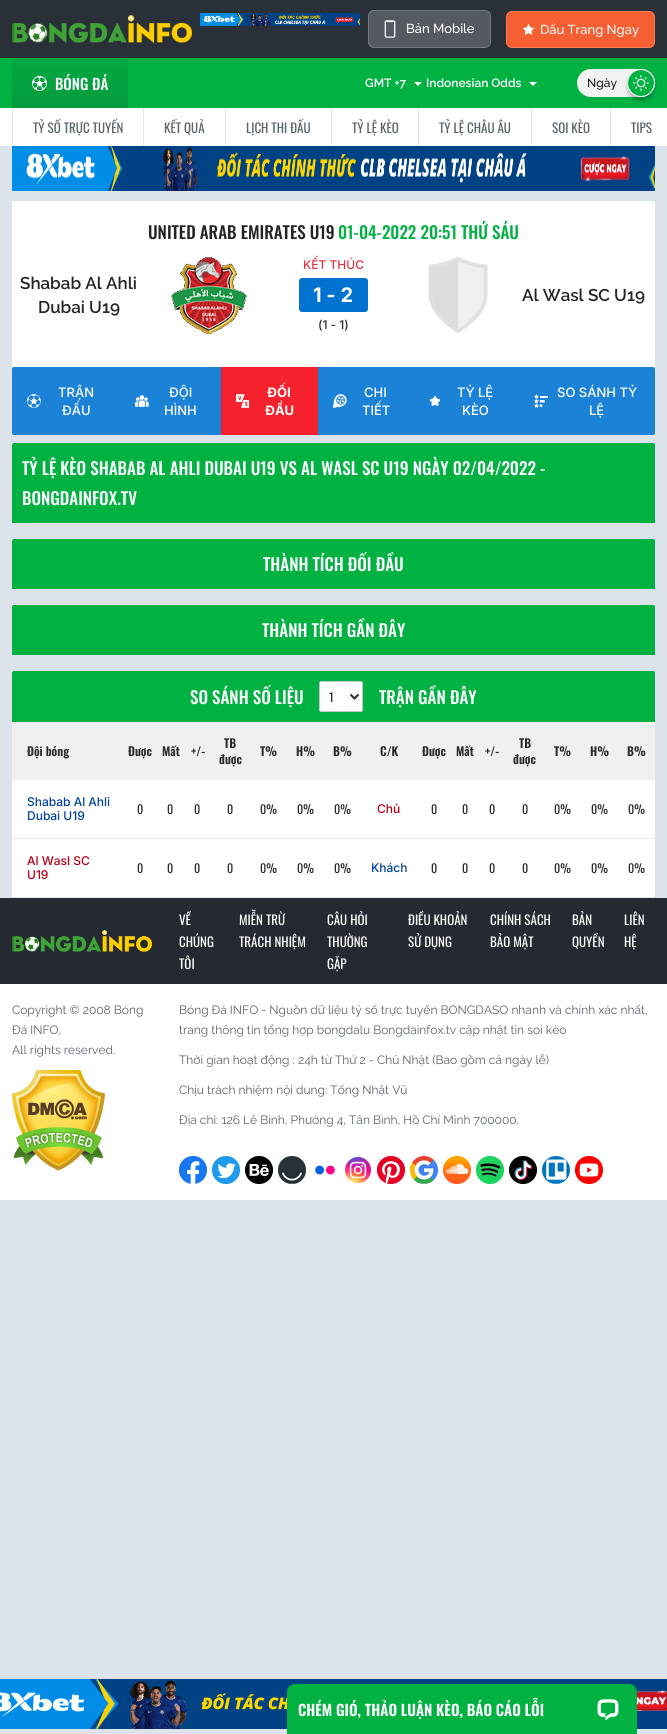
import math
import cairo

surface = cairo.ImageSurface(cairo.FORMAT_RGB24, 667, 1734)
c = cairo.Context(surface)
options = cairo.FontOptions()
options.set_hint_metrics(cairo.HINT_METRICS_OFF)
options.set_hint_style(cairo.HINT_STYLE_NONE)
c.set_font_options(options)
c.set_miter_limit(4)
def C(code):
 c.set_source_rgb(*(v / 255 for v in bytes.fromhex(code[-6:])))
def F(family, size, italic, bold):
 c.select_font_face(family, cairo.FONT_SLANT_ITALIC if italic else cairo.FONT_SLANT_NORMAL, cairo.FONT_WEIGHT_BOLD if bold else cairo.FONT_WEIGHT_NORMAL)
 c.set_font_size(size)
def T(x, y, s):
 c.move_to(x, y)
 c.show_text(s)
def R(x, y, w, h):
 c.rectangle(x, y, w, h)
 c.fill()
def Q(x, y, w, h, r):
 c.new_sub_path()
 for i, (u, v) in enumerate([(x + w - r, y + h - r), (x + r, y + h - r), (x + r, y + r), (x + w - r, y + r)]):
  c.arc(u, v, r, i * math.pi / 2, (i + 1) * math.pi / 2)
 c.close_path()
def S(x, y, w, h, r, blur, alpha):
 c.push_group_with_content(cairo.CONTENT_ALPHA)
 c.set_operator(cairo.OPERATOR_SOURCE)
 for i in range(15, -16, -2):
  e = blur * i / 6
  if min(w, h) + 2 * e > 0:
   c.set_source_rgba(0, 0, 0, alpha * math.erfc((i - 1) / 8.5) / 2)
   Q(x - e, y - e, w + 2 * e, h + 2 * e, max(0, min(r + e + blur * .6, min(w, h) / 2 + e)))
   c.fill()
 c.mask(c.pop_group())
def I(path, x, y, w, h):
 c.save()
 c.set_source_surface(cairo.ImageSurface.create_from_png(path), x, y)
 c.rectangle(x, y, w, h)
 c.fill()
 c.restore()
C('dce3ea')
c.paint()
C('2a3038')
R(0,0,667,58)
I('1.png',12,15,180,28)
I('2.png',200,13,160,13)
C('555960')
Q(368,10,123,38,6)
c.fill()
Q(368.5,10.5,122,37,5.5)
c.set_source_rgba(1,1,1,0.2)
c.set_line_width(1)
c.stroke()
I('3.png',384,20,12,18)
F('Raleway Medium',13,0,0)
C('ffffff')
T(406,33,'Bản Mobile')
C('f55f31')
Q(506,11,149,37,6)
c.fill()
Q(506.5,11.5,148,36,5.5)
c.set_source_rgba(1,1,1,0.2)
c.stroke()
I('4.png',522,23,13,12)
C('ffffff')
T(540,34,'Dấu Trang Ngay')
C('01b243')
R(0,58,667,50)
gradient = cairo.LinearGradient(70,58,70,108)
gradient.add_color_stop_rgba(0,0.016,0.663,0.255,1)
gradient.add_color_stop_rgba(1,0.02,0.608,0.239,1)
c.set_source(gradient)
R(12,58,116,50)
I('5.png',32,75,15,16)
F('Oswald Medium',15,0,0)
C('ffffff')
T(55,90,'BÓNG ĐÁ')
F('Raleway SemiBold',12,0,0)
T(365,87,'GMT +7')
c.new_path()
c.move_to(414,82)
c.line_to(422,82)
c.line_to(418,86)
c.close_path()
c.fill()
T(426,87,'Indonesian Odds')
c.new_path()
c.move_to(529,82)
c.line_to(537,82)
c.line_to(533,86)
c.close_path()
c.fill()
C('f1f4f2')
Q(577,69,78,28,14)
c.fill()
F('Raleway Medium',12,0,0)
C('141417')
T(587,87,'Ngày')
C('000000')
S(627,73,28,28,14,2,.25)
C('01b243')
c.arc(641,83,13.5,0,2 * math.pi)
c.fill_preserve()
C('ffffff')
c.stroke()
I('6.png',633,75,16,16)
R(0,108,667,38)
C('e7e7e8')
R(143,108,1,38)
R(12,108,1,38)
F('Oswald',13,0,0)
C('5b636d')
T(33,133,'TỶ SỐ TRỰC TUYẾN')
C('e7e7e8')
R(225,108,1,38)
C('5b636d')
T(164,133,'KẾT QUẢ')
C('e7e7e8')
R(331,108,1,38)
C('5b636d')
T(246,133,'LỊCH THI ĐẤU')
C('e7e7e8')
R(418,108,1,38)
C('5b636d')
T(352,133,'TỶ LỆ KÈO')
C('e7e7e8')
R(531,108,1,38)
C('5b636d')
T(439,133,'TỶ LỆ CHÂU ÂU')
C('e7e7e8')
R(610,108,1,38)
C('5b636d')
T(552,133,'SOI KÈO')
T(631,133,'TIPS')
I('7.png',12,146,643,45)
C('ffffff')
Q(12,201,643,234,2)
c.fill()
F('Oswald Medium',17,0,0)
C('232425')
T(148,239,'UNITED ARAB EMIRATES U19')
C('01b243')
T(338,239,'01-04-2022 20:51 THỨ SÁU')
F('Raleway SemiBold',17,0,0)
C('232425')
T(20,289,'Shabab Al Ahli')
T(38,313,'Dubai U19')
I('8.png',171,257,76,78)
F('Inter Medium',12,0,0)
C('dc3545')
T(303,269,'KẾT THÚC')
C('0073d0')
Q(299,278,69,34,3)
c.fill()
F('Inter',20,0,1)
C('ffffff')
T(313,302,'1 - 2')
F('Inter Medium',12,0,0)
C('2a3038')
T(318,329,'(1 - 1)')
I('9.png',428,257,60,76)
F('Raleway SemiBold',17,0,0)
C('232425')
T(522,301,'Al Wasl SC U19')
C('1c82d7')
Q(12,367,643,68,2)
c.fill()
I('10.png',27,394,14,14)
F('Inter Medium',13,0,0)
C('ffffff')
T(58,397,'TRẬN')
T(62,415,'ĐẤU')
I('11.png',135,395,14,12)
T(169,397,'ĐỘI')
T(164,415,'HÌNH')
C('f5222d')
R(221,367,97,68)
F('Inter',13,0,1)
C('ffffff')
T(267,397,'ĐỐI')
I('12.png',236,394,13,14)
T(265,415,'ĐẦU')
F('Inter Medium',13,0,0)
T(364,397,'CHI')
I('13.png',333,394,14,14)
T(362,415,'TIẾT')
T(457,397,'TỶ LỆ')
I('14.png',429,396,12,10)
T(462,415,'KÈO')
T(557,397,'SO SÁNH TỶ')
I('15.png',534,394,14,14)
T(589,415,'LỆ')
C('01b243')
c.new_path()
c.move_to(14,443)
c.line_to(653,443)
c.curve_to(654,443,655,444,655,445)
c.line_to(655,523)
c.line_to(12,523)
c.line_to(12,445)
c.curve_to(12,444,13,443,14,443)
c.close_path()
c.fill()
F('Oswald Medium',17,0,0)
C('ffffff')
T(22,475,'TỶ LỆ KÈO SHABAB AL AHLI DUBAI U19 VS AL WASL SC U19 NGÀY 02/04/2022 -')
T(22,505,'BONGDAINFOX.TV')
C('01b243')
c.new_path()
c.move_to(14,539)
c.line_to(653,539)
c.curve_to(654,539,655,540,655,541)
c.line_to(655,589)
c.line_to(12,589)
c.line_to(12,541)
c.curve_to(12,540,13,539,14,539)
c.close_path()
c.fill()
C('ffffff')
T(263,571,'THÀNH TÍCH ĐỐI ĐẦU')
C('01b243')
c.new_path()
c.move_to(14,605)
c.line_to(653,605)
c.curve_to(654,605,655,606,655,607)
c.line_to(655,655)
c.line_to(12,655)
c.line_to(12,607)
c.curve_to(12,606,13,605,14,605)
c.close_path()
c.fill()
C('ffffff')
T(262,637,'THÀNH TÍCH GẦN ĐÂY')
C('01b243')
c.new_path()
c.move_to(14,671)
c.line_to(653,671)
c.curve_to(654,671,655,672,655,673)
c.line_to(655,722)
c.line_to(12,722)
c.line_to(12,673)
c.curve_to(12,672,13,671,14,671)
c.close_path()
c.fill()
C('ffffff')
T(190,704,'SO SÁNH SỐ LIỆU')
Q(319.5,681.5,43,30,1.5)
c.fill_preserve()
C('c1c8cf')
c.stroke()
c.new_path()
c.move_to(350.5,694.5)
c.line_to(354.5,698.5)
c.line_to(358.5,694.5)
C('27292c')
c.set_line_width(2)
c.stroke()
F('Oswald',12,0,0)
T(329,702,'1')
F('Oswald Medium',17,0,0)
C('ffffff')
T(379,704,'TRẬN GẦN ĐÂY')
C('f0f0f0')
R(12,722,643,58)
F('Oswald SemiBold',12,0,0)
C('27292c')
T(27,756,'Đội bóng')
T(128,756,'Được')
T(162,756,'Mất')
T(191,756,'+/-')
T(224,748,'TB')
T(219,764,'được')
T(260,756,'T%')
T(296,756,'H%')
T(333,756,'B%')
T(380,756,'C/K')
T(422,756,'Được')
T(456,756,'Mất')
T(485,756,'+/-')
T(519,748,'TB')
T(513,764,'được')
T(554,756,'T%')
T(590,756,'H%')
T(627,756,'B%')
C('ffffff')
R(12,780,643,58)
F('Inter Medium',12,0,0)
C('00429c')
T(27,806,'Shabab Al Ahli')
T(27,820,'Dubai U19')
F('Oswald',12,0,0)
C('27292c')
T(137,814,'0')
T(167,814,'0')
T(194,814,'0')
T(227,814,'0')
T(260,814,'0%')
T(297,814,'0%')
T(334,814,'0%')
F('Inter Medium',12,0,0)
C('b80016')
T(377,813,'Chủ')
F('Oswald',12,0,0)
C('27292c')
T(431,814,'0')
T(462,814,'0')
T(489,814,'0')
T(522,814,'0')
T(554,814,'0%')
T(591,814,'0%')
C('e9e9e9')
R(12,838,643,1)
C('27292c')
T(628,814,'0%')
C('ffffff')
R(12,839,643,58)
F('Inter Medium',12,0,0)
C('b80016')
T(27,865,'Al Wasl SC')
T(27,879,'U19')
F('Oswald',12,0,0)
C('27292c')
T(137,873,'0')
T(167,873,'0')
T(194,873,'0')
T(227,873,'0')
T(260,873,'0%')
T(297,873,'0%')
T(334,873,'0%')
F('Inter Medium',12,0,0)
C('00429c')
T(371,872,'Khách')
F('Oswald',12,0,0)
C('27292c')
T(431,873,'0')
T(462,873,'0')
T(489,873,'0')
T(522,873,'0')
T(554,873,'0%')
T(591,873,'0%')
C('e9e9e9')
R(12,897,643,1)
C('27292c')
T(628,873,'0%')
C('ffffff')
R(0,984,667,216)
C('252a32')
R(0,898,667,86)
I('16.png',12,930,140,22)
F('Oswald',13,0,0)
C('ffffff')
T(179,925,'VỀ')
T(179,947,'CHÚNG')
T(179,969,'TÔI')
T(239,925,'MIỄN TRỪ')
T(239,947,'TRÁCH NHIỆM')
T(327,925,'CÂU HỎI')
T(327,947,'THƯỜNG')
T(327,969,'GẶP')
T(408,925,'ĐIỀU KHOẢN')
T(408,947,'SỬ DỤNG')
T(490,925,'CHÍNH SÁCH')
T(490,947,'BẢO MẬT')
T(572,925,'BẢN')
T(572,947,'QUYỀN')
T(624,925,'LIÊN')
T(624,947,'HỆ')
F('Raleway',12,0,0)
C('5b636d')
T(12,1014,'Copyright © 2008 Bóng')
T(12,1034,'Đá INFO,')
T(12,1054,'All rights reserved.')
I('17.png',12,1070,93,101)
T(179,1014,'Bóng Đá INFO - Nguồn dữ liệu tỷ số trực tuyến BONGDASO nhanh và chính xác nhất,')
T(179,1034,'trang thông tin tổng hợp bongdalu Bongdainfox.tv cập nhật tin soi kèo')
T(179,1064,'Thời gian hoạt động : 24h từ Thứ 2 - Chủ Nhật (Bao gồm cả ngày lễ)')
T(179,1094,'Chịu trách nhiệm nội dung: Tống Nhật Vũ')
T(179,1124,'Địa chỉ: 126 Lê Bình, Phường 4, Tân Bình, Hồ Chí Minh 700000.')
I('18.png',179,1156,28,28)
I('19.png',212,1156,28,28)
I('20.png',245,1156,28,28)
I('21.png',278,1156,28,28)
I('22.png',315,1165,20,10)
I('23.png',345,1157,26,27)
I('24.png',377,1156,28,28)
I('25.png',410,1156,28,28)
I('26.png',443,1156,28,28)
I('27.png',476,1156,28,28)
I('28.png',509,1156,28,28)
I('29.png',542,1156,28,28)
I('30.png',575,1156,28,28)
I('31.png',0,1679,667,50)
c.save()
c.rectangle(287,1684,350,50)
c.clip()
C('000000')
S(287,1688,350,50,8,6,.3)
c.restore()
C('01b243')
c.new_path()
c.move_to(295,1684)
c.line_to(629,1684)
c.curve_to(633.5,1684,637,1687.5,637,1692)
c.line_to(637,1734)
c.line_to(287,1734)
c.line_to(287,1692)
c.curve_to(287,1687.5,290.5,1684,295,1684)
c.close_path()
c.fill()
c.save()
c.rectangle(298,1698,288,22)
c.clip()
F('Oswald SemiBold',15,0,0)
C('ffffff')
T(298,1716,'CHÉM GIÓ, THẢO LUẬN KÈO, BÁO CÁO LỖI')
c.restore()
I('32.png',597,1699,22,22)
surface.write_to_png('o.png')
